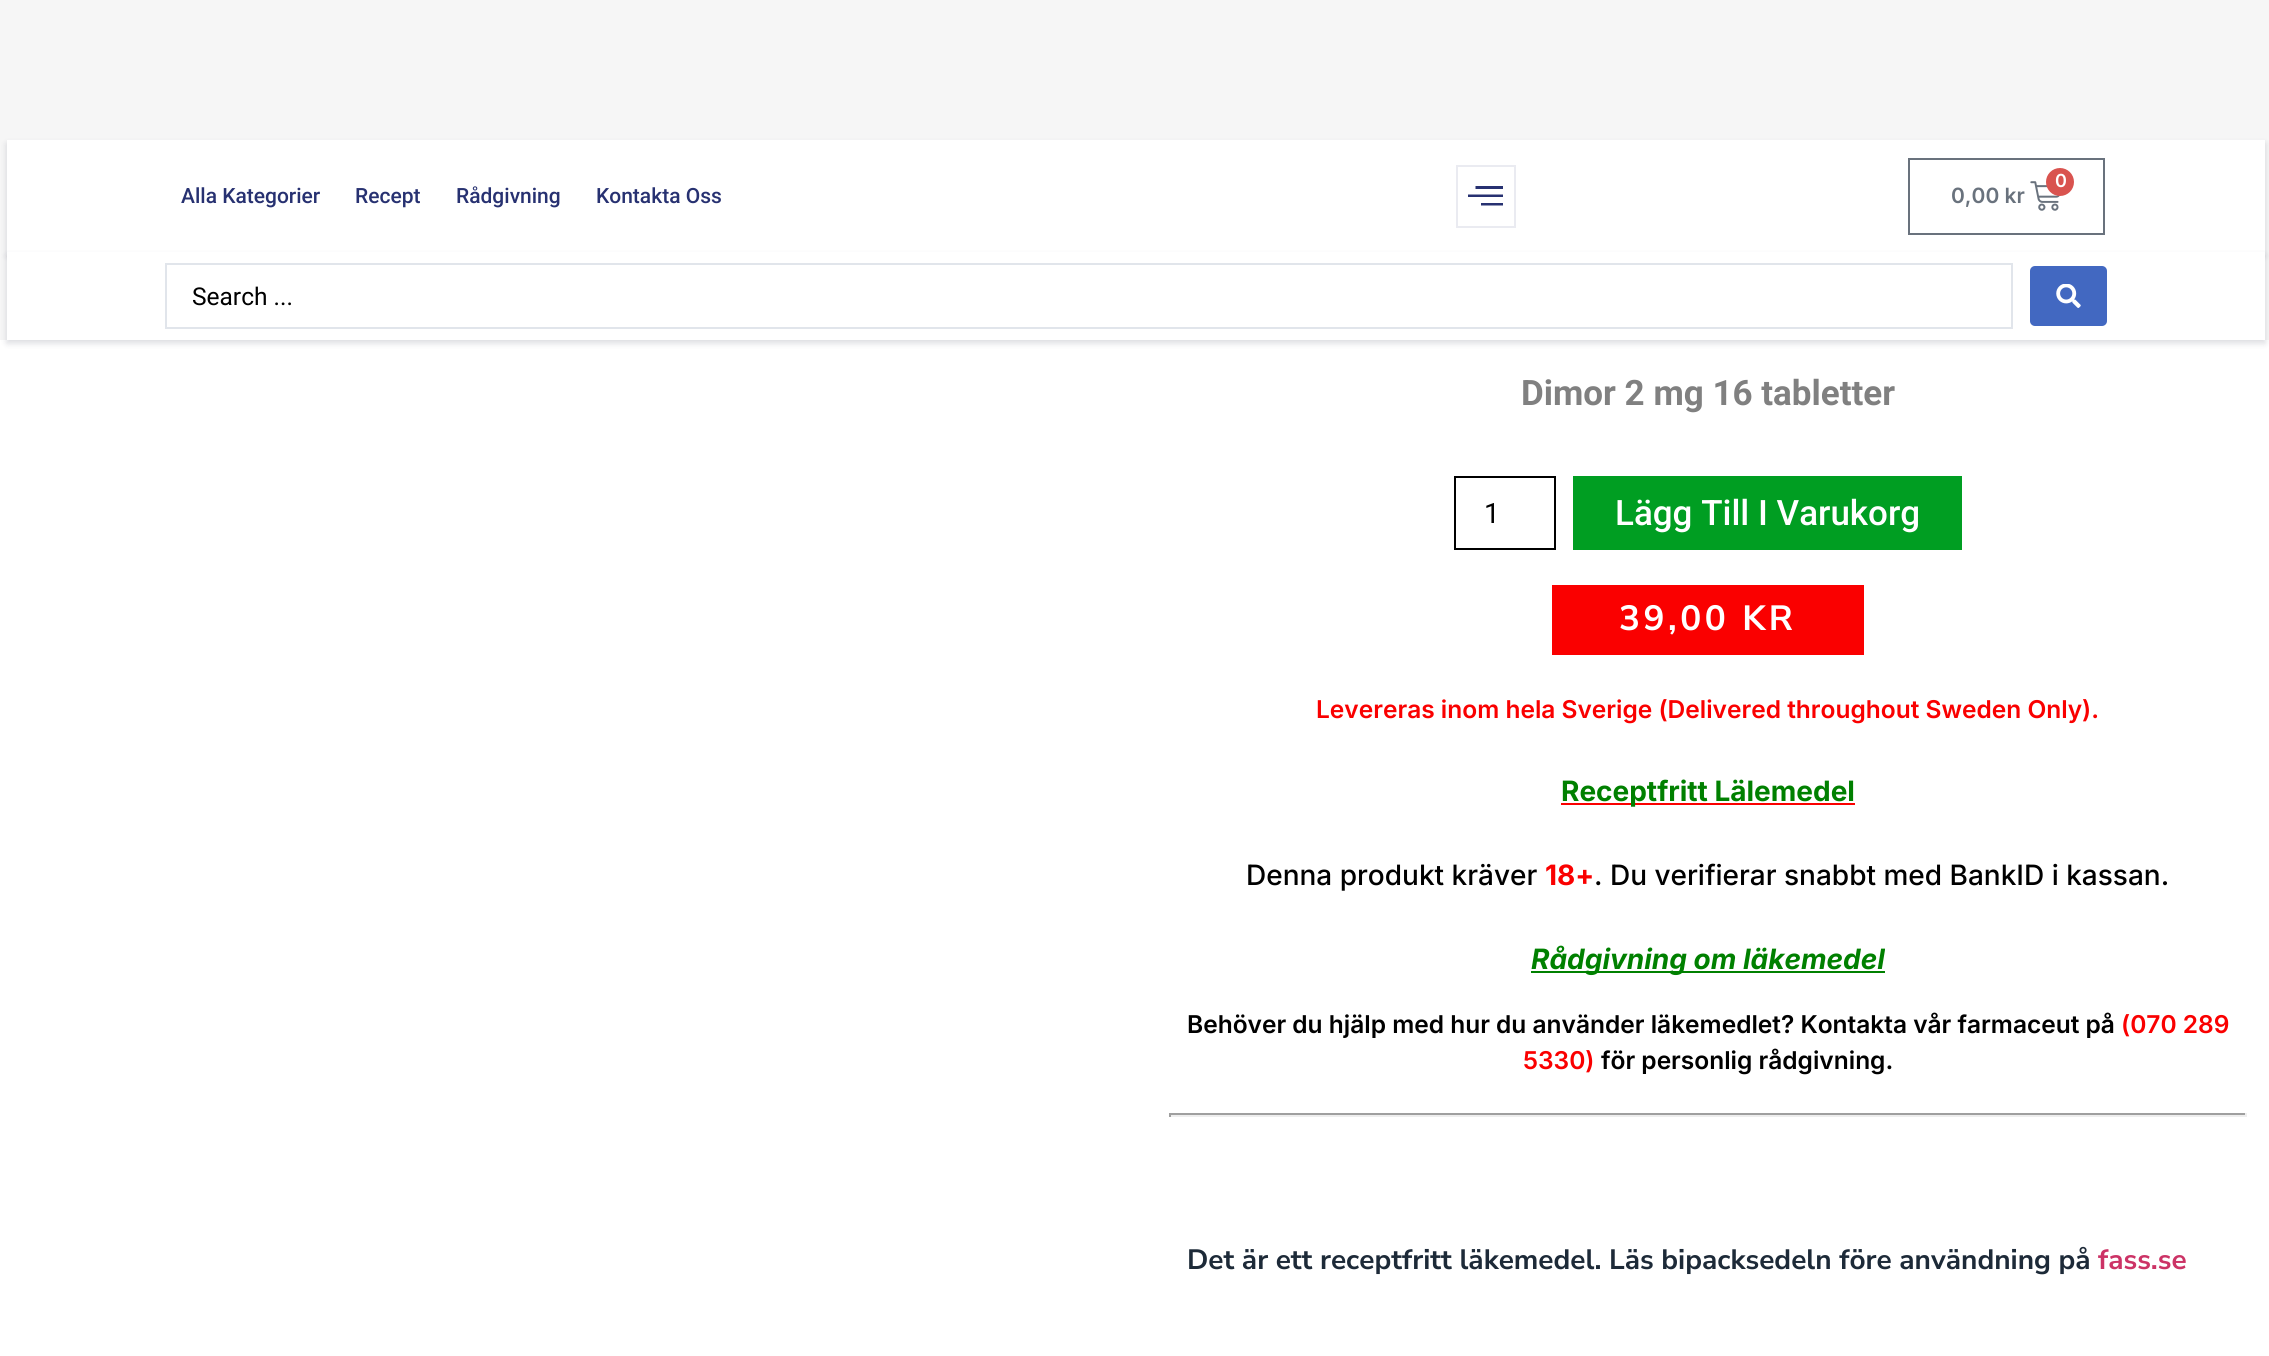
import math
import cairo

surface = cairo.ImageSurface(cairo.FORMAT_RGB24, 2269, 1356)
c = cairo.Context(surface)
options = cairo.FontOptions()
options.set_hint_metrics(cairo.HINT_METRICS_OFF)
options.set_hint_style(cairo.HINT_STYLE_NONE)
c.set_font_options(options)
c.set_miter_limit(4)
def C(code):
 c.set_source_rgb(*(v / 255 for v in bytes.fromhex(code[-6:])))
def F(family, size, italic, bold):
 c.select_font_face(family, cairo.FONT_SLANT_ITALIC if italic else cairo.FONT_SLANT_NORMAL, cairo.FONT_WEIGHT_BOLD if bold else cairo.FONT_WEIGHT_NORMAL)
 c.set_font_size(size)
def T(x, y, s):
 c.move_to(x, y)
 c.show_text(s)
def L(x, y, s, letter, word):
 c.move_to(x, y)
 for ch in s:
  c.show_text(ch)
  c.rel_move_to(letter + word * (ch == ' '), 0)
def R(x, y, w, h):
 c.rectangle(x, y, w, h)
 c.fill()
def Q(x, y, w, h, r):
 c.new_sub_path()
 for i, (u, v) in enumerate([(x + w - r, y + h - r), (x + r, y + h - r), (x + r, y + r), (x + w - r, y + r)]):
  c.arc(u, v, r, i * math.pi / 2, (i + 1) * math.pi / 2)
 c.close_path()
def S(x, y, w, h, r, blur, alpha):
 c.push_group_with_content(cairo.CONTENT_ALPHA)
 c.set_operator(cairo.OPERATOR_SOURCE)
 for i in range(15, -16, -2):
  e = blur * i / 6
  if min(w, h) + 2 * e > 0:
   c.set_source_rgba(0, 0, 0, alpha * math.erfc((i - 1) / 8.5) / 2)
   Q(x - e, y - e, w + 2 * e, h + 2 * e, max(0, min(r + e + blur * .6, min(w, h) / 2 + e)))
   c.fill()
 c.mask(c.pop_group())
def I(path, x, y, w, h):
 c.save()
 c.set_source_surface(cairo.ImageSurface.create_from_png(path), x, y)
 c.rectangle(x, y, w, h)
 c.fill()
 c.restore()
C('f6f6f6')
c.paint()
C('111633')
S(7,144,2258,112,0,3.5,.16)
C('ffffff')
R(7,140,2258,112)
F('Roboto Medium',21,0,0)
C('273171')
T(181,203,'Alla Kategorier')
T(355,203,'Recept')
T(456,203,'Rådgivning')
T(596,203,'Kontakta Oss')
c.rectangle(1457,166,58,61)
C('eaebf1')
c.stroke()
C('273171')
c.new_path()
c.move_to(1468,197)
c.line_to(1503,197)
c.line_to(1503,194.5)
c.line_to(1468,194.5)
c.close_path()
c.move_to(1481,205.5)
c.line_to(1503,205.5)
c.line_to(1503,203)
c.line_to(1481,203)
c.close_path()
c.move_to(1475.5,186)
c.line_to(1475.5,189)
c.line_to(1503,189)
c.line_to(1503,186)
c.close_path()
c.fill()
c.rectangle(1909,159,195,75)
C('69727d')
c.stroke()
I('1.png',2030,181,30,30)
C('d9534f')
c.arc(2060,182,14,0,2 * math.pi)
c.fill()
F('Inter SemiBold',18,0,0)
C('ffffff')
T(2055,187,'0')
F('Inter SemiBold',21,0,0)
C('69727d')
T(1951,203,'0,00 kr')
C('ffffff')
R(0,340,2269,1016)
C('111633')
S(7,256,2258,87,0,3.5,.16)
C('ffffff')
R(7,252,2258,88)
c.rectangle(166,264,1846,64)
C('e1e5eb')
c.stroke()
F('Roboto',24.5,0,0)
C('000000')
T(192,305,'Search ...')
C('4268c1')
Q(2030,266,77,60,5)
c.fill()
I('2.png',2056,284,25,24)
F('Roboto',35,0,1)
C('808080')
T(1521,405,'Dimor 2 mg 16 tabletter')
c.rectangle(1455,477,100,72)
C('000000')
c.stroke()
F('Roboto',28,0,0)
T(1484,523,'1')
C('009e22')
R(1573,476,389,74)
F('Roboto Medium',35,0,0)
C('ffffff')
T(1615,525,'Lägg Till I Varukorg')
C('fa0000')
R(1552,585,312,70)
F('Nunito Sans',35,0,1)
C('ffffff')
L(1619,630,'39,00 KR',3.5,0)
F('Inter SemiBold',24.5,0,0)
C('fa0000')
T(1316,718,'Levereras inom hela Sverige (Delivered throughout Sweden Only).')
R(1561,803,294,2)
F('Inter',28,0,1)
C('008000')
T(1561,801,'Receptfritt Lälemedel')
F('Inter Medium',28,0,0)
C('000000')
T(1246,885,'Denna produkt kräver')
F('Inter',28,0,1)
C('fa0000')
T(1545,885,'18+')
F('Inter Medium',28,0,0)
C('000000')
T(1594,885,'. Du verifierar snabbt med BankID i kassan.')
C('008000')
R(1531,971,354,2)
F('Inter',28,1,1)
T(1531,969,'Rådgivning om läkemedel')
F('Inter SemiBold',24.5,0,0)
C('000000')
T(1187,1033,'Behöver du hjälp med hur du använder läkemedlet? Kontakta vår farmaceut på')
C('fa0000')
T(2121,1033,'(070 289')
T(1523,1069,'5330)')
C('000000')
T(1601,1069,'för personlig rådgivning.')
C('9f9f9f')
R(1169,1113,1078,2)
C('eeeeee')
R(2245,1113,2,4)
R(1169,1115,1078,2)
C('9f9f9f')
R(1169,1113,2,4)
F('Nunito Sans',28,0,1)
C('1d2a38')
T(1187,1269,'Det är ett receptfritt läkemedel. Läs bipacksedeln före användning på')
C('cc3366')
T(2098,1269,'fass.se')
surface.write_to_png('o.png')
